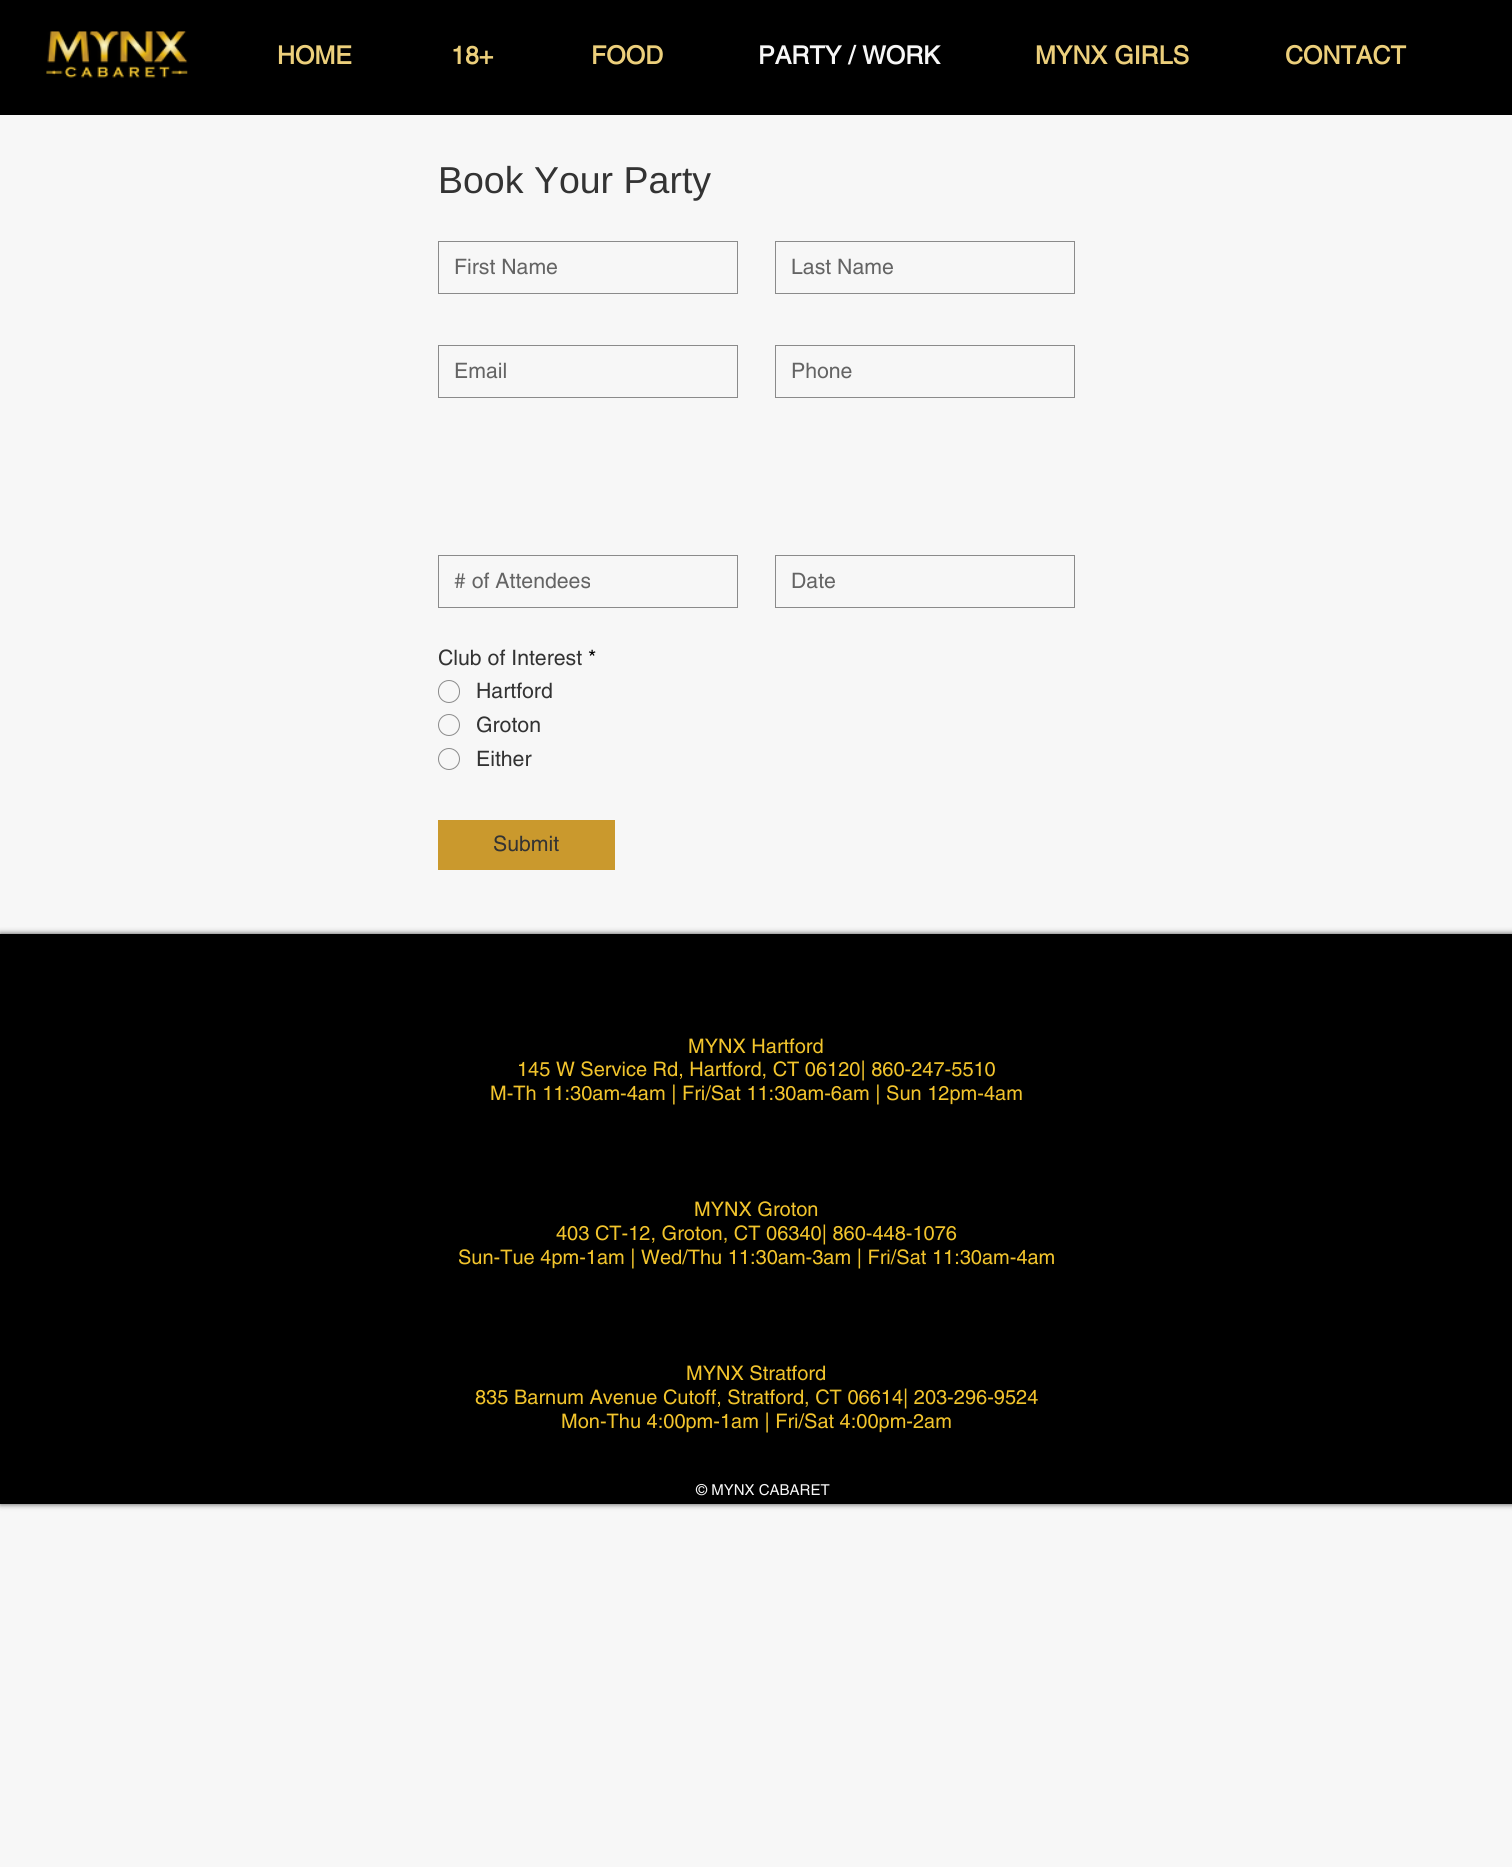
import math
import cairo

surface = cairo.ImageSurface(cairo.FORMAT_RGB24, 1512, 1867)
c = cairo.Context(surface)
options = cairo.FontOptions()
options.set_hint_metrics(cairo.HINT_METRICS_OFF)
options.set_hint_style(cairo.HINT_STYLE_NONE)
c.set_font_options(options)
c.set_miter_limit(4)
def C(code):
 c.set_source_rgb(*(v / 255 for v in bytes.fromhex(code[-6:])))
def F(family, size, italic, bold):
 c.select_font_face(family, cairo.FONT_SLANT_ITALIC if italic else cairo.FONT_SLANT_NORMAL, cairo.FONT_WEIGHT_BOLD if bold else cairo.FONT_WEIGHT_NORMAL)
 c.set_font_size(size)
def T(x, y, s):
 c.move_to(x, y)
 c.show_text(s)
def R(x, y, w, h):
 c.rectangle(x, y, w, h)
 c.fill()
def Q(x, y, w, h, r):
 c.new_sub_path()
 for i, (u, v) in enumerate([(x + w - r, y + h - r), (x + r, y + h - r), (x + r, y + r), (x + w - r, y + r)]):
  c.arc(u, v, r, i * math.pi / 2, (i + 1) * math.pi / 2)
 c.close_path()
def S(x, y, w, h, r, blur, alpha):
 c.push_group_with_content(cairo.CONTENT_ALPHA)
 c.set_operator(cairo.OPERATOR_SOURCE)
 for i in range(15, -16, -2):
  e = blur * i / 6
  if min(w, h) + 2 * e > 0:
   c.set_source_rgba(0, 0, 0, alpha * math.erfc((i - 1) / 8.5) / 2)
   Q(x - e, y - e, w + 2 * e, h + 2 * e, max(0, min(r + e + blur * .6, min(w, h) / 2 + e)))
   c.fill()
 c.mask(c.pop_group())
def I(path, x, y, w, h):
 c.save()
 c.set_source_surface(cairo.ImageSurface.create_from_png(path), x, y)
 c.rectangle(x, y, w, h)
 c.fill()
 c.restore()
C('f7f7f7')
c.paint()
C('000000')
R(0,0,1512,115)
I('1.png',46,31,142,47)
F('helvetica',25,0,1)
C('eccf7b')
T(277,64,'HOME')
T(451,64,'18+')
T(591,64,'FOOD')
C('f7f7f7')
T(758,64,'PARTY / WORK')
C('eccf7b')
T(1035,64,'MYNX GIRLS')
T(1285,64,'CONTACT')
F('Liberation Sans',37.5,0,0)
C('333333')
T(438,193,'Book Your Party')
c.rectangle(438.5,241.5,299,52)
C('8b8b8b')
c.set_line_width(1)
c.stroke()
F('helvetica',21.25,0,0)
C('646464')
T(454,274,'First Name')
c.rectangle(775.5,241.5,299,52)
C('8b8b8b')
c.stroke()
C('646464')
T(791,274,'Last Name')
c.rectangle(438.5,345.5,299,52)
C('8b8b8b')
c.stroke()
C('646464')
T(454,378,'Email')
c.rectangle(775.5,345.5,299,52)
C('8b8b8b')
c.stroke()
C('646464')
T(791,378,'Phone')
c.rectangle(438.5,555.5,299,52)
C('8b8b8b')
c.stroke()
C('646464')
T(454,588,'# of Attendees')
c.rectangle(775.5,555.5,299,52)
C('8b8b8b')
c.stroke()
C('646464')
T(791,588,'Date')
C('333333')
T(438,665,'Club of Interest')
C('000000')
T(588,665,'*')
Q(438.5,680.5,21,22,10.5)
C('8b8b8b')
c.stroke()
C('333333')
T(476,698,'Hartford')
c.new_path()
c.arc(449,725,10.5,0,2 * math.pi)
C('8b8b8b')
c.stroke()
C('333333')
T(476,732,'Groton')
c.new_path()
c.arc(449,759,10.5,0,2 * math.pi)
C('8b8b8b')
c.stroke()
C('333333')
T(476,766,'Either')
C('ca992d')
R(438,820,177,50)
C('333333')
T(493,851,'Submit')
C('000000')
S(0,934,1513,570,0,3,.7)
C('000000')
R(0,934,1512,570)
F('helvetica',20,0,0)
C('f2c42c')
T(688,1053,'MYNX Hartford')
T(517,1076,'145 W Service Rd, Hartford, CT 06120| 860-247-5510')
T(490,1100,'M-Th 11:30am-4am | Fri/Sat 11:30am-6am | Sun 12pm-4am')
T(694,1216,'MYNX Groton')
T(556,1240,'403 CT-12, Groton, CT 06340| 860-448-1076')
T(458,1264,'Sun-Tue 4pm-1am | Wed/Thu 11:30am-3am | Fri/Sat 11:30am-4am')
T(686,1380,'MYNX Stratford')
T(475,1404,'835 Barnum Avenue Cutoff, Stratford, CT 06614| 203-296-9524')
T(561,1428,'Mon-Thu 4:00pm-1am | Fri/Sat 4:00pm-2am')
F('helvetica',15,0,0)
C('f7f7f7')
T(696,1495,'© MYNX CABARET')
surface.write_to_png('o.png')
